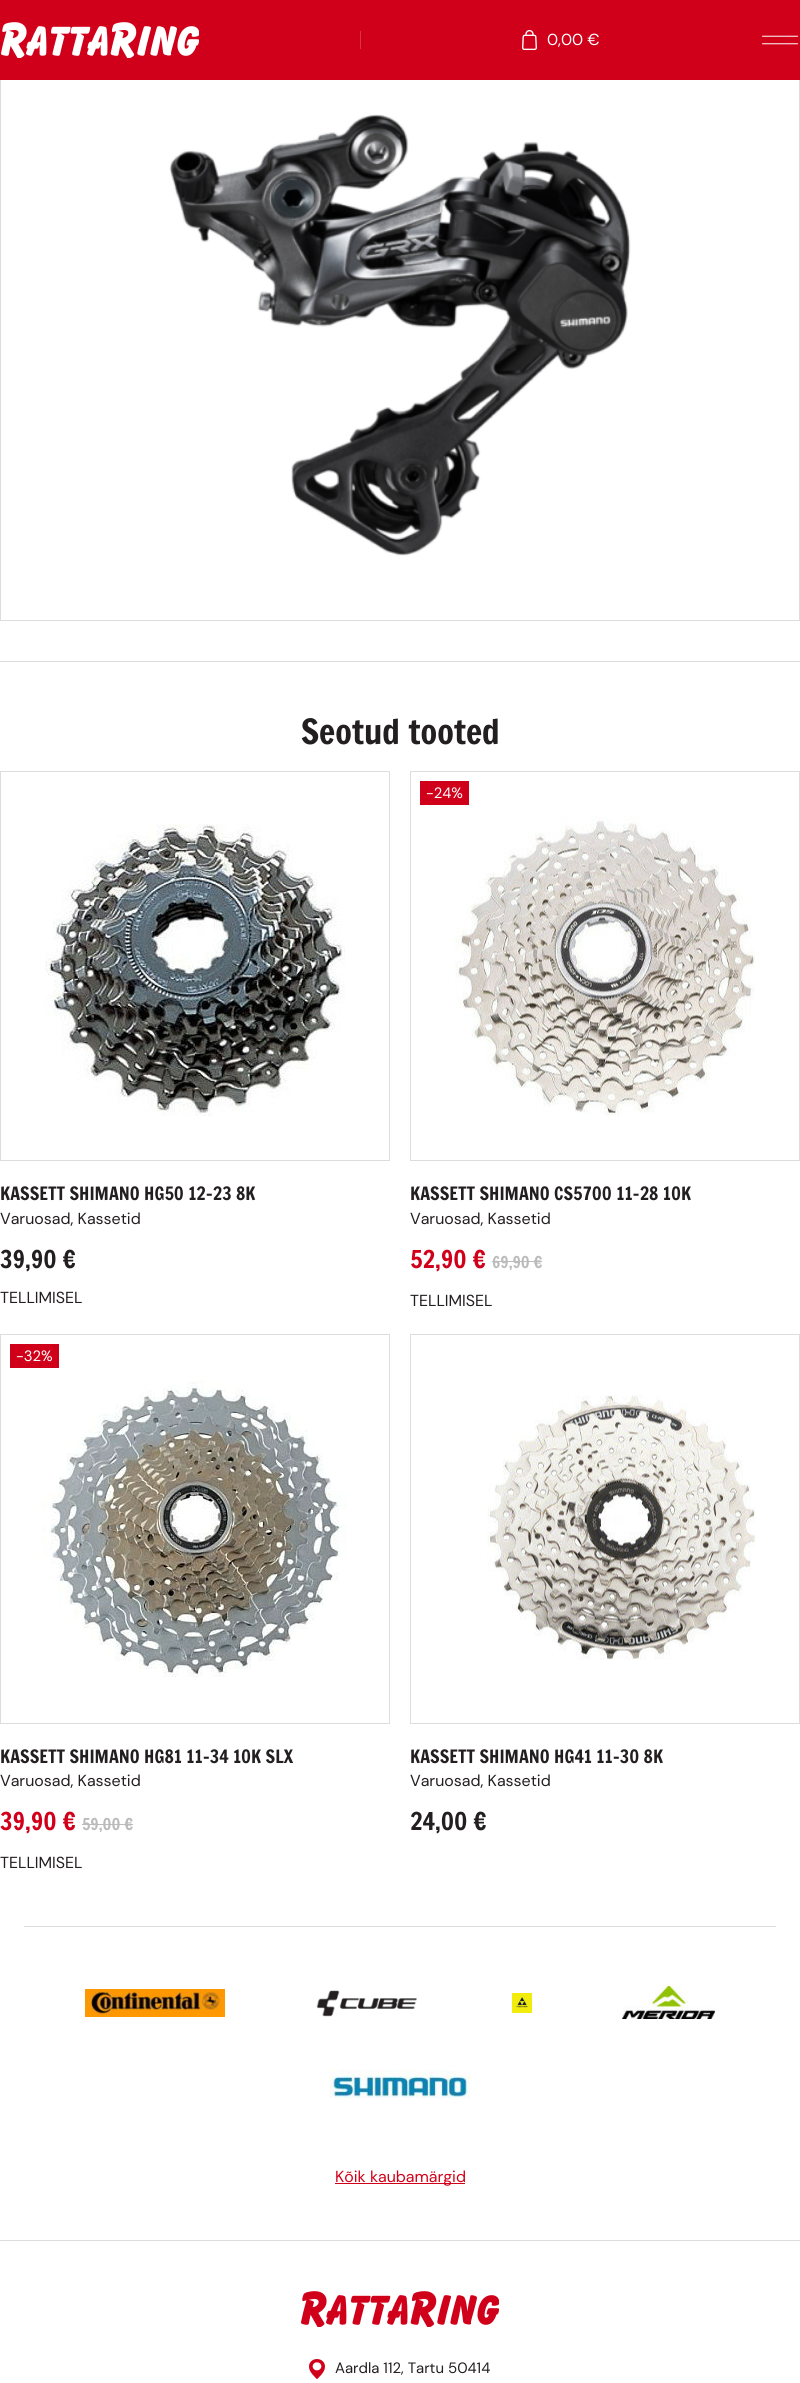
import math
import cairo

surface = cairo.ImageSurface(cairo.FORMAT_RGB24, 800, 2383)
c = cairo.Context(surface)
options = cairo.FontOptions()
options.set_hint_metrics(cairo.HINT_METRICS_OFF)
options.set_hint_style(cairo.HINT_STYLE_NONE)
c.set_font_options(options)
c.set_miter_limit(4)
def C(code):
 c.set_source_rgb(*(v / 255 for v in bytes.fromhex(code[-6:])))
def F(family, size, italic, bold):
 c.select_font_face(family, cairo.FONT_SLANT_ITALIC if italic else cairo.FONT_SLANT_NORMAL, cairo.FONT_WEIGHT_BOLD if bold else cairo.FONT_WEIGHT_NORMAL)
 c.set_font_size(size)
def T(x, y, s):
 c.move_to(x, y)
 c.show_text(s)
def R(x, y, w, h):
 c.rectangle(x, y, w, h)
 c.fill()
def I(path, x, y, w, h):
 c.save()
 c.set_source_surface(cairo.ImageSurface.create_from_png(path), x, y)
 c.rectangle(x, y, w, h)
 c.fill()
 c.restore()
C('ffffff')
c.paint()
c.rectangle(.5,49.5,799,571)
C('dddddd')
c.set_line_width(1)
c.stroke()
C('d1001a')
R(0,0,800,80)
I('1.png',1,22,198,36)
C('da3348')
R(360,31,1,18)
I('2.png',522,30,15,20)
F('DM Sans',16,0,0)
C('ffffff')
T(547,45,'0,00 €')
I('3.png',762,35,36,10)
I('4.png',169,114,462,442)
C('dddddd')
R(0,661,800,1)
F('Francois One',34,0,0)
C('231f20')
T(301,744,'Seotud tooted')
c.rectangle(.5,771.5,389,389)
C('dddddd')
c.stroke()
I('5.png',45,824,300,292)
F('Francois One',18,0,0)
C('231f20')
T(0,1200,'KASSETT SHIMANO HG50 12-23 8K')
F('DM Sans',16,0,0)
T(0,1224,'Varuosad, Kassetid')
F('Francois One',24,0,0)
T(0,1268,'39,90 €')
F('DM Sans',16,0,0)
T(0,1303,'TELLIMISEL')
c.rectangle(410.5,771.5,389,389)
C('dddddd')
c.stroke()
C('d1001a')
R(420,781,49,24)
F('DM Sans',15,0,0)
C('ffffff')
T(426,798,'-24%')
I('6.png',455,816,300,300)
F('Francois One',18,0,0)
C('231f20')
T(410,1200,'KASSETT SHIMANO CS5700 11-28 10K')
F('DM Sans',16,0,0)
T(410,1224,'Varuosad, Kassetid')
F('Francois One',24,0,0)
C('d1001a')
T(410,1268,'52,90 €')
F('Francois One',16,0,0)
C('bbbbbb')
T(492,1268,'69,90 €')
R(492,1261,50,1)
F('DM Sans',16,0,0)
C('231f20')
T(410,1306,'TELLIMISEL')
c.rectangle(.5,1334.5,389,389)
C('dddddd')
c.stroke()
C('d1001a')
R(10,1344,49,24)
F('DM Sans',15,0,0)
C('ffffff')
T(16,1361,'-32%')
I('7.png',43,1381,304,296)
F('Francois One',18,0,0)
C('231f20')
T(0,1763,'KASSETT SHIMANO HG81 11-34 10K SLX')
F('DM Sans',16,0,0)
T(0,1786,'Varuosad, Kassetid')
F('Francois One',24,0,0)
C('d1001a')
T(0,1830,'39,90 €')
F('Francois One',16,0,0)
C('bbbbbb')
T(82,1830,'59,00 €')
R(82,1824,51,1)
F('DM Sans',16,0,0)
C('231f20')
T(0,1868,'TELLIMISEL')
c.rectangle(410.5,1334.5,389,389)
C('dddddd')
c.stroke()
I('8.png',487,1395,268,265)
F('Francois One',18,0,0)
C('231f20')
T(410,1763,'KASSETT SHIMANO HG41 11-30 8K')
F('DM Sans',16,0,0)
T(410,1786,'Varuosad, Kassetid')
F('Francois One',24,0,0)
T(410,1830,'24,00 €')
C('dddddd')
R(24,1926,752,1)
I('9.png',85,1989,140,28)
I('10.png',316,1990,101,27)
I('11.png',512,1993,20,20)
I('12.png',622,1986,93,33)
I('13.png',330,2070,140,29)
C('d1001a')
R(335,2183,130,1)
F('DM Sans',16,0,0)
T(335,2182,'Kõik kaubamärgid')
C('dddddd')
R(0,2240,800,1)
I('14.png',301,2291,198,36)
I('15.png',309,2359,16,20)
F('DM Sans',15,0,0)
C('231f20')
T(335,2373,'Aardla 112, Tartu 50414')
surface.write_to_png('o.png')
